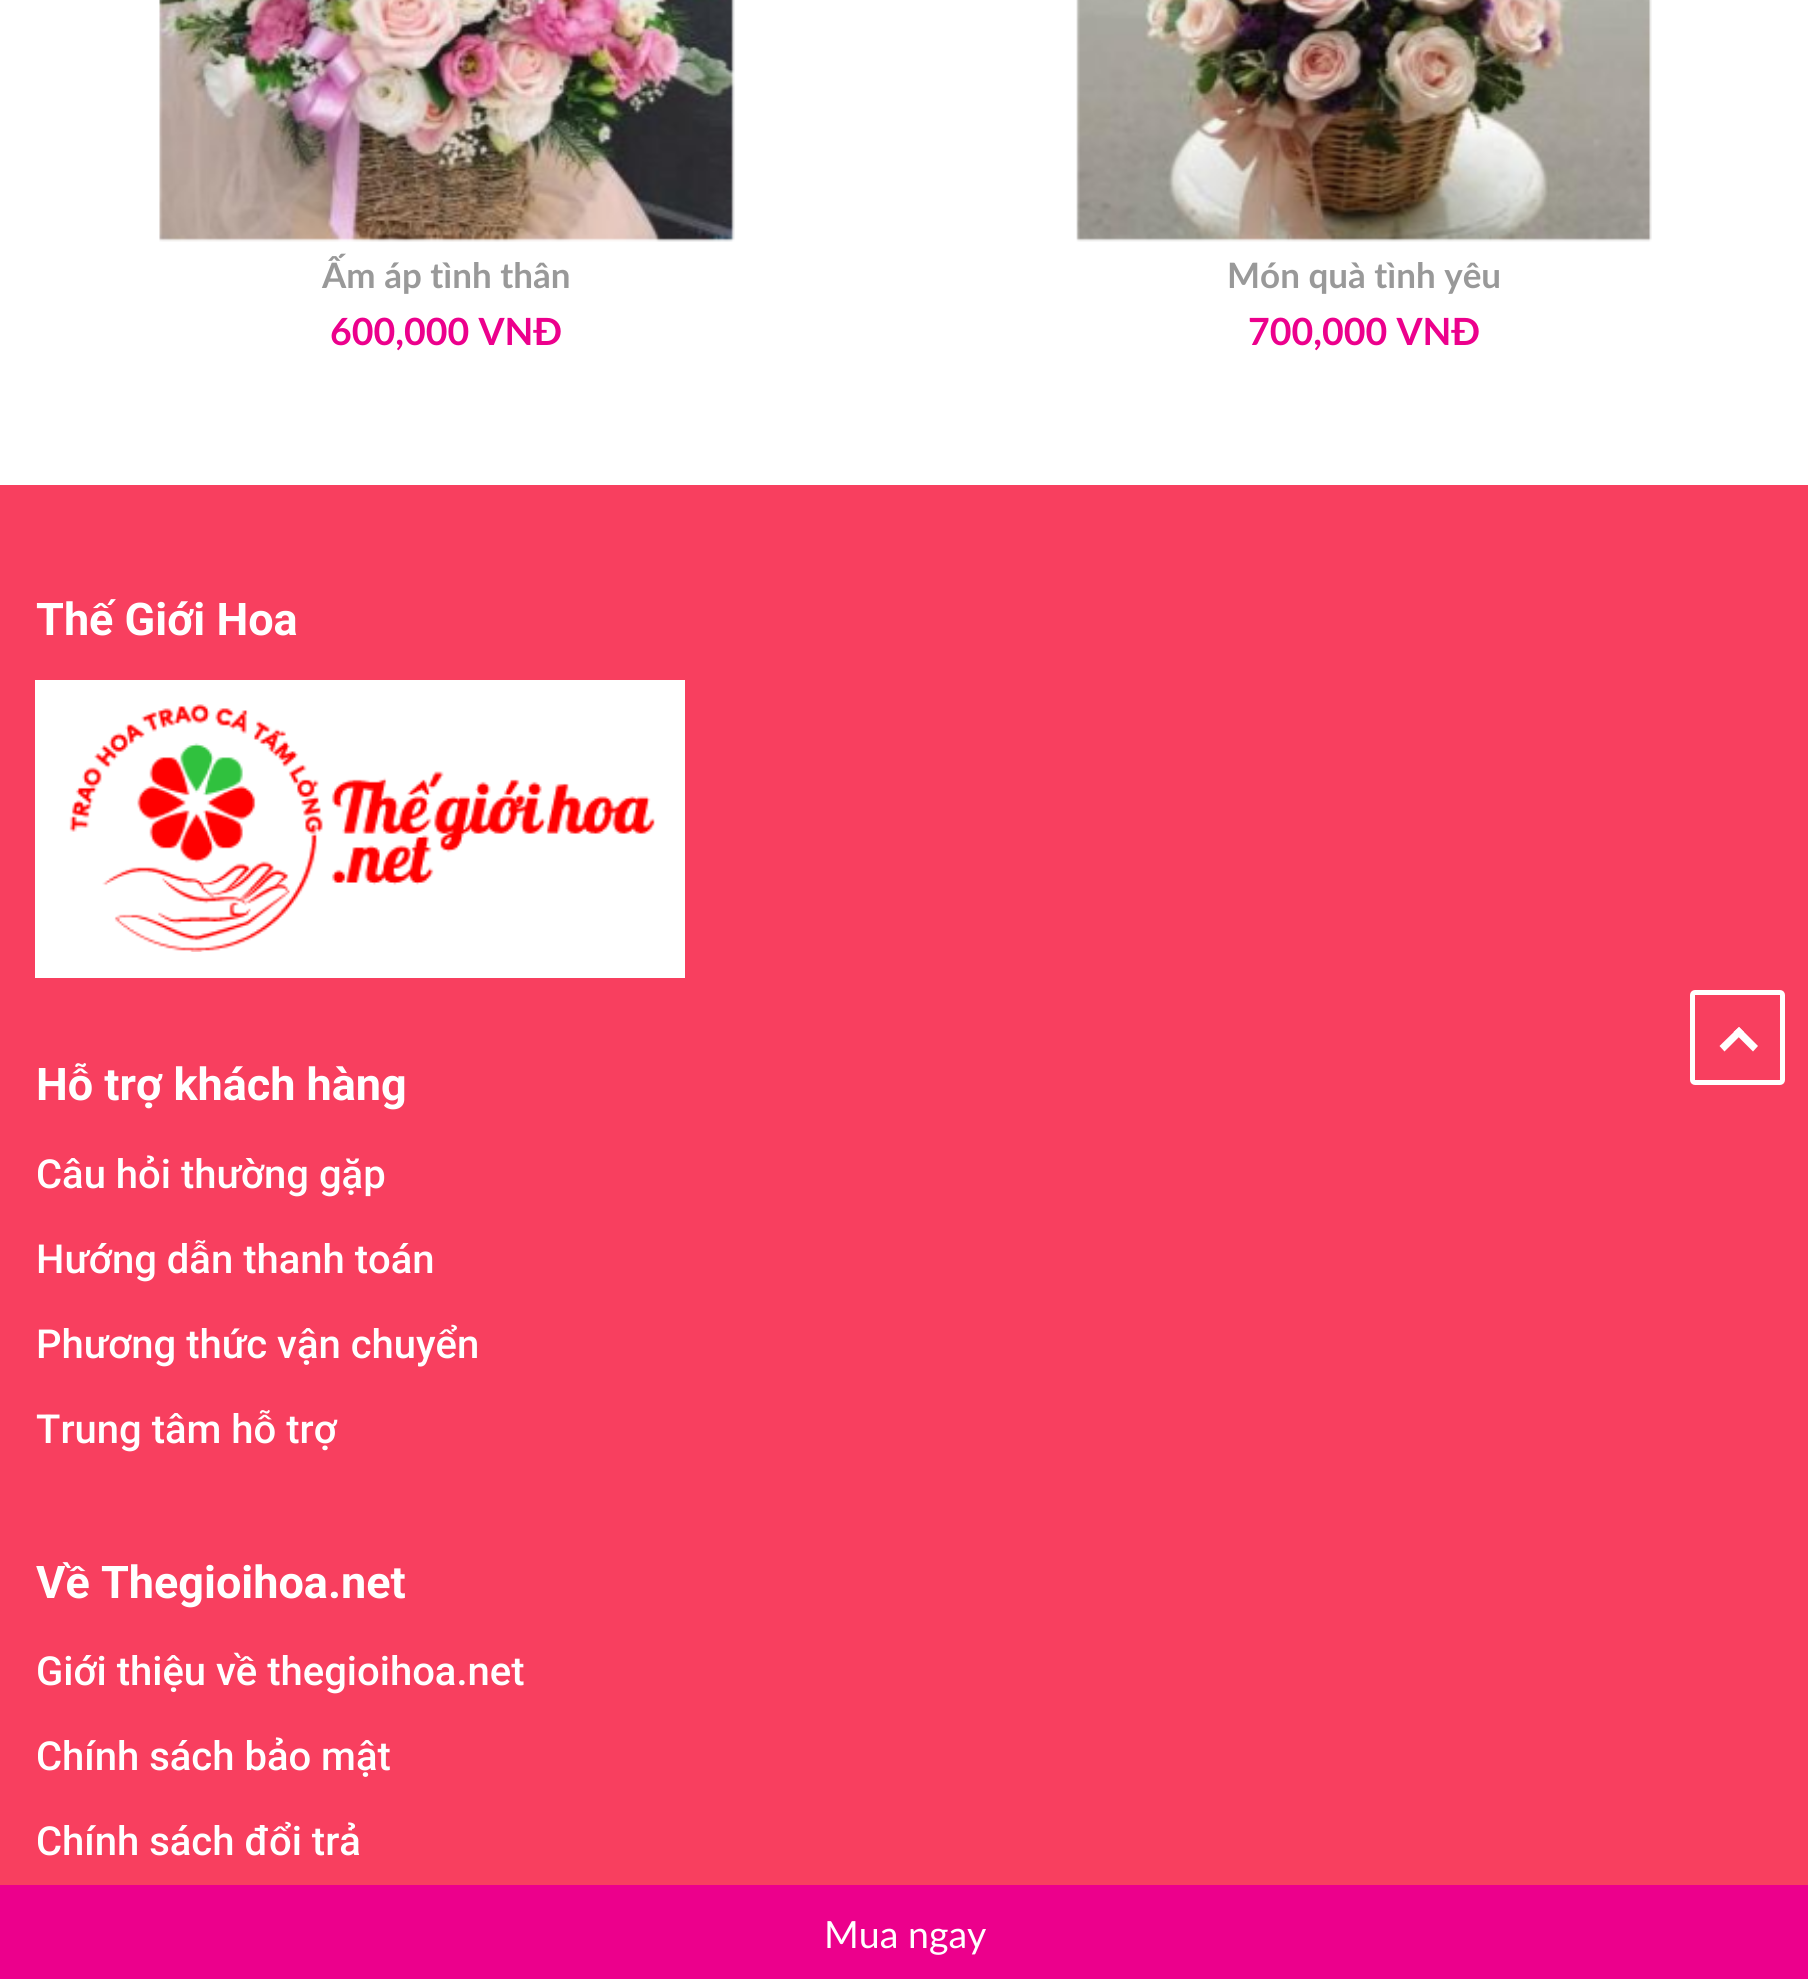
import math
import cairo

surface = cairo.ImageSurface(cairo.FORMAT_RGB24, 1808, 1979)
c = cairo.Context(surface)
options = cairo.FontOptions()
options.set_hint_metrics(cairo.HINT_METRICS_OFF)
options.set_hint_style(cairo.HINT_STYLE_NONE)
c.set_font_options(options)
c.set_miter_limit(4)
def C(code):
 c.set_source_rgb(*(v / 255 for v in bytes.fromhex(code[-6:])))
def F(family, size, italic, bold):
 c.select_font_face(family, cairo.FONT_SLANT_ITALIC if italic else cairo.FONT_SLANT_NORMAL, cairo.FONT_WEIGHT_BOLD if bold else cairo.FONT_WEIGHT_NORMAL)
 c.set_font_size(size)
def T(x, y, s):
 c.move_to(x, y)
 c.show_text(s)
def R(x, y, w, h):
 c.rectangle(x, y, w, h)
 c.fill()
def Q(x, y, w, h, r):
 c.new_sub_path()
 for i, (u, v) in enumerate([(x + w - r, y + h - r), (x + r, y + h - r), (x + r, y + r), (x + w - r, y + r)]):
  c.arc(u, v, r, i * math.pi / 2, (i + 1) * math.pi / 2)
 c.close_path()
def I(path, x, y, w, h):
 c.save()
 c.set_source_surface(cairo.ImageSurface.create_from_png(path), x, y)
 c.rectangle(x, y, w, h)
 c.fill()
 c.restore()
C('ffffff')
c.paint()
I('1.png',159,0,576,242)
F('Lato',35,0,1)
C('999999')
T(322,288,'Ấm áp tình thân')
F('Lato',37.5,0,1)
C('ec008c')
T(330,345,'600,000 VNĐ')
I('2.png',1076,0,576,242)
F('Lato',35,0,1)
C('999999')
T(1227,288,'Món quà tình yêu')
F('Lato',37.5,0,1)
C('ec008c')
T(1248,345,'700,000 VNĐ')
C('f83f5f')
R(0,485,1808,1400)
F('Roboto',45,0,1)
C('ffffff')
T(36,635,'Thế Giới Hoa')
R(35,680,650,298)
I('3.png',69,704,586,248)
T(36,1100,'Hỗ trợ khách hàng')
F('Roboto Medium',40,0,0)
T(36,1188,'Câu hỏi thường gặp')
T(36,1273,'Hướng dẫn thanh toán')
T(36,1358,'Phương thức vận chuyển')
T(36,1443,'Trung tâm hỗ trợ')
F('Roboto',45,0,1)
T(36,1598,'Về Thegioihoa.net')
F('Roboto Medium',40,0,0)
T(36,1685,'Giới thiệu về thegioihoa.net')
T(36,1770,'Chính sách bảo mật')
T(36,1855,'Chính sách đổi trả')
C('ec008c')
R(0,1885,1808,94)
F('Lato',37.5,0,0)
C('ffffff')
T(824,1948,'Mua ngay')
Q(1692.5,992.5,90,90,2.5)
c.set_line_width(5)
c.stroke()
c.new_path()
c.move_to(1724.5,1051.5)
c.line_to(1719.5,1046)
c.line_to(1739,1027)
c.line_to(1744,1032)
c.close_path()
c.fill()
c.new_path()
c.move_to(1753,1051.5)
c.line_to(1733.5,1032)
c.line_to(1739,1027)
c.line_to(1758,1046)
c.close_path()
c.fill()
surface.write_to_png('o.png')
